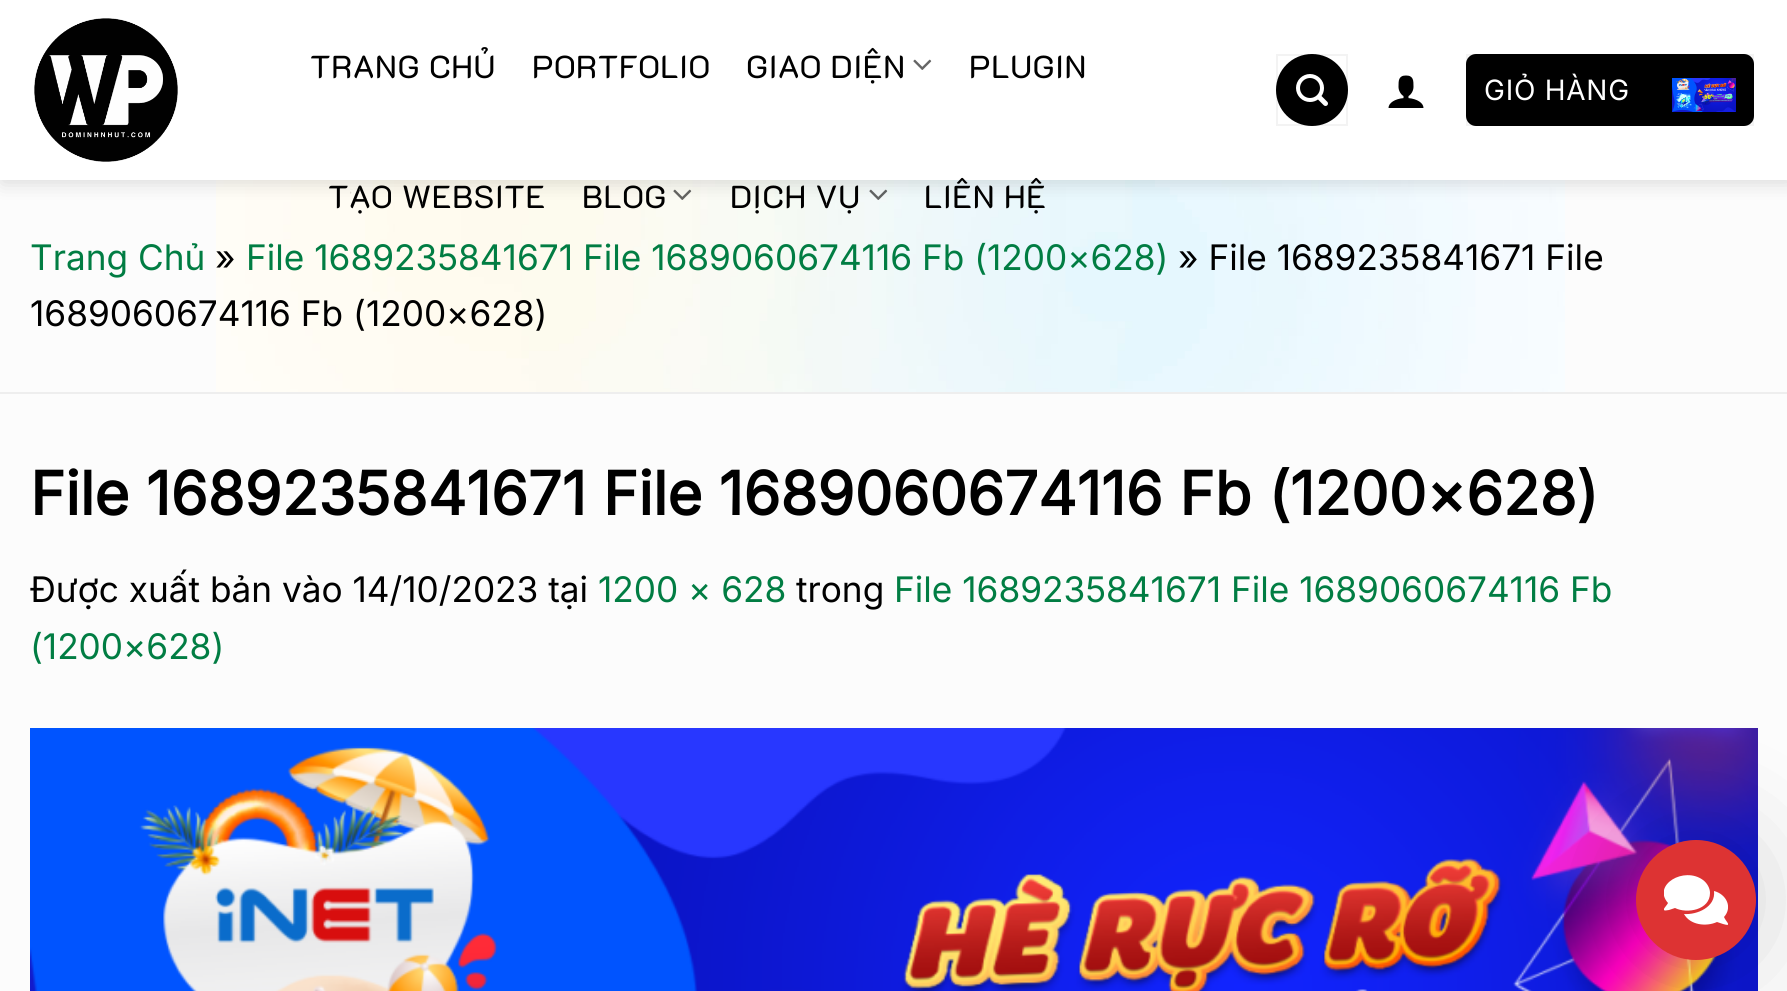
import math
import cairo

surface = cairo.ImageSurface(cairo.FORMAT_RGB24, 1787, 991)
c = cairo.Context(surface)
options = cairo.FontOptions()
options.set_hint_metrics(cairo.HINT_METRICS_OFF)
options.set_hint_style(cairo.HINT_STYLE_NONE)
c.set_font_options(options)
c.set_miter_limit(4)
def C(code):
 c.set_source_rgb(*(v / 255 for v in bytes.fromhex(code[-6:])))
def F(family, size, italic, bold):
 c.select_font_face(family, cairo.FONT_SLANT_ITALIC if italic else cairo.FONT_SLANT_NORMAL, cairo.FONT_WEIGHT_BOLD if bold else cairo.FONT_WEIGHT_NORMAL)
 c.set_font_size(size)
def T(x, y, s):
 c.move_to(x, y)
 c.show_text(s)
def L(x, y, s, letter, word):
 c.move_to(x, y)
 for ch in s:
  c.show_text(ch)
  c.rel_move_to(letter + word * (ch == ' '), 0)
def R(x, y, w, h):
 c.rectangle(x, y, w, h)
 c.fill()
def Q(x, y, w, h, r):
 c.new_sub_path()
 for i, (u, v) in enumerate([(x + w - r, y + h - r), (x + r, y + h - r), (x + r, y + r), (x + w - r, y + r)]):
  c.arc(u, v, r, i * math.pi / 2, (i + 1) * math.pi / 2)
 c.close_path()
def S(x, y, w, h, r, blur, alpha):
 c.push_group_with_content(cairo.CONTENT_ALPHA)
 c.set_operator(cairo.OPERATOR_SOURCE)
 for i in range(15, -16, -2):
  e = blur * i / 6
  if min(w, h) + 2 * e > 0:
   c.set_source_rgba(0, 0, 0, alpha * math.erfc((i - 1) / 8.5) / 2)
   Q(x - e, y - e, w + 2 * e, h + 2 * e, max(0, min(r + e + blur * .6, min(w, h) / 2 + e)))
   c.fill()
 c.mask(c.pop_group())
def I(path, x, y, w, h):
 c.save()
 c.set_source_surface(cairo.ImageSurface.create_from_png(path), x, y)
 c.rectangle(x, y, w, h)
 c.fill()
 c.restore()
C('fcfcfc')
c.paint()
I('8.png',216,180,1349,212)
C('000000')
S(2,2,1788,180,0,10,.15)
C('ffffff')
R(0,0,1787,180)
I('1.png',34,18,144,144)
F('K2D',31.75,0,0)
C('000000')
L(310,78,'TRANG CHỦ',.6,0)
L(532,78,'PORTFOLIO',.6,0)
L(746,78,'GIAO DIỆN',.6,0)
I('2.png',913,59,19,11)
L(969,78,'PLUGIN',.6,0)
L(328,208,'TẠO WEBSITE',.6,0)
L(582,208,'BLOG',.6,0)
I('3.png',673,189,19,11)
L(730,208,'DỊCH VỤ',.6,0)
I('4.png',869,189,19,11)
L(924,208,'LIÊN HỆ',.6,0)
c.new_path()
c.arc(1312,90,36,0,2 * math.pi)
c.fill()
c.rectangle(1277,55,70,70)
c.set_source_rgba(0,0,0,0.05)
c.stroke()
I('5.png',1296,74,32,32)
I('6.png',1388,75,36,33)
C('000000')
Q(1466,54,288,72,10)
c.fill()
c.rectangle(1467,55,286,70)
c.set_source_rgba(0,0,0,0.05)
c.stroke()
F('Inter',28,0,0)
C('ffffff')
L(1484,100,'GIỎ HÀNG',.75,0)
I('7.png',1672,78,64,34)
C('eeeeee')
R(0,392,1787,2)
F('Inter',35.2,0,0)
C('017d43')
T(30,270,'Trang Chủ')
C('000000')
T(215,270,'»')
C('017d43')
T(246,270,'File 1689235841671 File 1689060674116 Fb (1200×628)')
C('000000')
T(1178,270,'» File 1689235841671 File')
T(30,326,'1689060674116 Fb (1200×628)')
F('Inter',59.85,0,1)
T(30,515,'File 1689235841671 File 1689060674116 Fb (1200×628)')
F('Inter',35.2,0,0)
T(30,602,'Được xuất bản vào 14/10/2023 tại')
C('017d43')
T(598,602,'1200 × 628')
C('000000')
T(796,602,'trong')
C('017d43')
T(894,602,'File 1689235841671 File 1689060674116 Fb')
T(30,659,'(1200×628)')
I('9.png',30,728,1728,263)
C('000000')
S(1636,840,120,120,60,60,.15)
C('dd3333')
c.arc(1696,900,60,0,2 * math.pi)
c.fill()
c.save()
c.rectangle(1664,868,64,64)
c.clip()
C('ffffff')
c.new_path()
c.move_to(1710,893)
c.curve_to(1710,888,1707,883,1703,880)
c.curve_to(1684,866,1652,885,1668,903)
c.curve_to(1666,907,1659,912,1669,910)
c.line_to(1675,908)
c.curve_to(1687,914,1710,910,1710,893)
c.close_path()
c.move_to(1724,917)
c.curve_to(1733,907,1726,894,1714,891)
c.curve_to(1716,907,1697,915,1684,914)
c.curve_to(1690,925,1706,927,1717,922)
c.line_to(1723,924)
c.curve_to(1733,927,1726,922,1724,917)
c.close_path()
c.fill()
c.restore()
surface.write_to_png('o.png')
